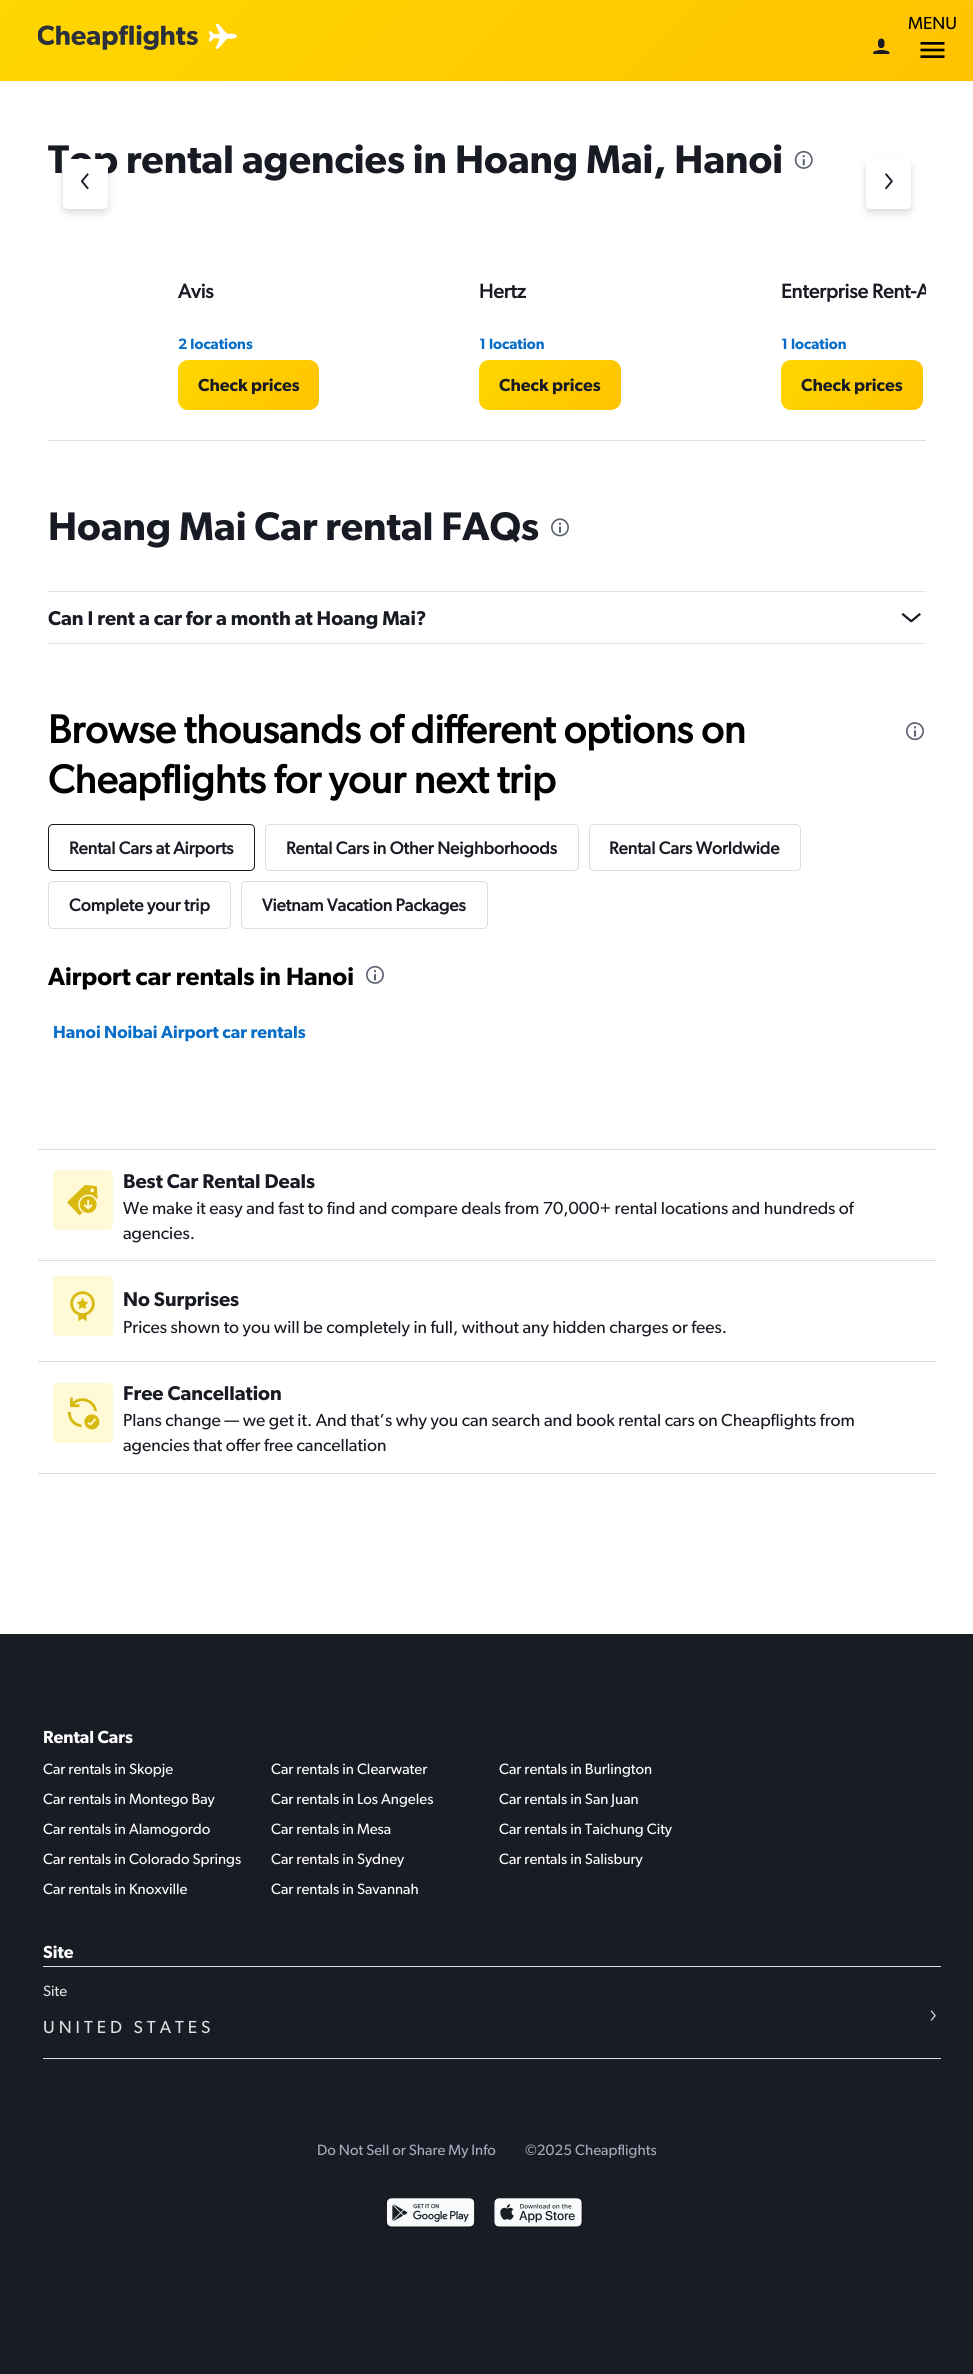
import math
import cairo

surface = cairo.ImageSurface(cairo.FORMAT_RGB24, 973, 2374)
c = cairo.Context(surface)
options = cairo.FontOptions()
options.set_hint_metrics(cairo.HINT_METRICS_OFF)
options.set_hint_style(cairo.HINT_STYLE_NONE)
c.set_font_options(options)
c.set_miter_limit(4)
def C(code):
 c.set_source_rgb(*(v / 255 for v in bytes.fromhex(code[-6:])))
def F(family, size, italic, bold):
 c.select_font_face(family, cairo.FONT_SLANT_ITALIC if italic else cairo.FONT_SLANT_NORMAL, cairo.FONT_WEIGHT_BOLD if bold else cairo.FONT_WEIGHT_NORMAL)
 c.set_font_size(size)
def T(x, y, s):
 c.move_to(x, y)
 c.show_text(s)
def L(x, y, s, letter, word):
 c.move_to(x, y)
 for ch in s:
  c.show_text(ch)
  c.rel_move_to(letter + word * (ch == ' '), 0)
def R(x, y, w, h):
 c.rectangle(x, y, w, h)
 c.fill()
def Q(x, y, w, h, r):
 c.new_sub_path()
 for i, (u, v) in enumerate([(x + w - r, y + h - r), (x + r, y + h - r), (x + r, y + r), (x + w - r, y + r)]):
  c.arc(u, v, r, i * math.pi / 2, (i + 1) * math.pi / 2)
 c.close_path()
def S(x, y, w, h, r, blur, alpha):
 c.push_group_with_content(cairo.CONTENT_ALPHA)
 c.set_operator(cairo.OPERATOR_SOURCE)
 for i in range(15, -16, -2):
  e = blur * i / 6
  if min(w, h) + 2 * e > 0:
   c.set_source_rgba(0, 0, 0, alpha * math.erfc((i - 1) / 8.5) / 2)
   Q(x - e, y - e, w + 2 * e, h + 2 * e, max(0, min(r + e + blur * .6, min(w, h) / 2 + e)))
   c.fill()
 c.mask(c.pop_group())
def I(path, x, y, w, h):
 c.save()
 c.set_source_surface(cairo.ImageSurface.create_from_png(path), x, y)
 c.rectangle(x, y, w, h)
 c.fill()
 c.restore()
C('ffffff')
c.paint()
gradient = cairo.LinearGradient(223,-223,751,304)
gradient.add_color_stop_rgba(0,1,0.839,0,1)
gradient.add_color_stop_rgba(1,1,0.765,0,1)
c.set_source(gradient)
R(0,0,973,81)
I('1.png',38,25,160,25)
I('2.png',209,24,28,25)
I('3.png',873,38,17,16)
F('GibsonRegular',17.5,0,0)
C('000000')
T(908,29,'MENU')
I('4.png',920,42,25,16)
F('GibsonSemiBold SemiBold',40,0,0)
C('191b24')
T(48,173,'Top rental agencies in Hoang Mai, Hanoi')
I('5.png',794,150,19,19)
C('191b24')
S(63,163,45,50,5,4,.16)
C('ffffff')
Q(63,159,45,50,5)
c.fill()
I('6.png',80,173,9,17)
C('191b24')
S(866,163,45,50,5,4,.16)
C('ffffff')
Q(866,159,45,50,5)
c.fill()
I('7.png',885,173,8,17)
C('d9dde8')
R(48,440,878,1)
F('GibsonRegular',20,0,1)
C('191b24')
T(178,298,'Avis')
F('GibsonSemiBold SemiBold',15,0,0)
C('066dc7')
T(178,349,'2 locations')
gradient = cairo.LinearGradient(200,337,296,433)
gradient.add_color_stop_rgba(0,1,0.839,0,1)
gradient.add_color_stop_rgba(1,1,0.765,0,1)
c.set_source(gradient)
Q(178,360,141,50,10)
c.fill()
F('GibsonSemiBold SemiBold',17.5,0,0)
C('191b24')
T(198,391,'Check prices')
F('GibsonRegular',20,0,1)
T(479,298,'Hertz')
F('GibsonSemiBold SemiBold',15,0,0)
C('066dc7')
T(479,349,'1 location')
gradient = cairo.LinearGradient(502,337,598,433)
gradient.add_color_stop_rgba(0,1,0.839,0,1)
gradient.add_color_stop_rgba(1,1,0.765,0,1)
c.set_source(gradient)
Q(479,360,142,50,10)
c.fill()
F('GibsonSemiBold SemiBold',17.5,0,0)
C('191b24')
T(499,391,'Check prices')
c.save()
c.rectangle(48,224,878,216)
c.clip()
F('GibsonRegular',20,0,1)
T(781,298,'Enterprise Rent-A')
c.restore()
F('GibsonSemiBold SemiBold',15,0,0)
C('066dc7')
T(781,349,'1 location')
gradient = cairo.LinearGradient(804,337,900,433)
gradient.add_color_stop_rgba(0,1,0.839,0,1)
gradient.add_color_stop_rgba(1,1,0.765,0,1)
c.set_source(gradient)
Q(781,360,142,50,10)
c.fill()
F('GibsonSemiBold SemiBold',17.5,0,0)
C('191b24')
T(801,391,'Check prices')
F('GibsonSemiBold SemiBold',40,0,0)
T(48,540,'Hoang Mai Car rental FAQs')
I('8.png',551,518,18,19)
C('e3e4e6')
R(48,591,878,1)
R(48,643,878,1)
F('GibsonSemiBold SemiBold',20,0,0)
C('191b24')
T(48,625,'Can I rent a car for a month at Hoang Mai?')
I('9.png',901,613,20,10)
F('GibsonRegular',40,0,1)
C('000000')
T(48,743,'Browse thousands of different options on')
T(48,793,'Cheapflights for your next trip')
I('10.png',906,722,18,19)
Q(48.5,824.5,206,46,4.5)
C('191b24')
c.set_line_width(1)
c.stroke()
F('GibsonRegular',17.5,0,1)
T(69,854,'Rental Cars at Airports')
Q(265.5,824.5,313,46,4.5)
C('d9dde8')
c.stroke()
C('191b24')
T(286,854,'Rental Cars in Other Neighborhoods')
Q(589.5,824.5,211,46,4.5)
C('d9dde8')
c.stroke()
C('191b24')
T(609,854,'Rental Cars Worldwide')
Q(48.5,881.5,182,47,4.5)
C('d9dde8')
c.stroke()
C('191b24')
T(69,911,'Complete your trip')
Q(241.5,881.5,246,47,4.5)
C('d9dde8')
c.stroke()
C('191b24')
T(262,911,'Vietnam Vacation Packages')
F('GibsonSemiBold SemiBold',25,0,0)
C('000000')
T(48,985,'Airport car rentals in Hanoi')
I('11.png',366,965,18,19)
F('GibsonSemiBold SemiBold',17.5,0,0)
C('066dc7')
T(53,1038,'Hanoi Noibai Airport car rentals')
C('d9dde8')
R(38,1149,898,1)
R(38,1260,898,1)
C('fff9d6')
Q(53,1170,60,60,5)
c.fill()
I('12.png',67,1185,31,30)
F('GibsonSemiBold SemiBold',20,0,0)
C('191b24')
T(123,1188,'Best Car Rental Deals')
F('GibsonRegular',17.5,0,0)
T(123,1214,'We make it easy and fast to find and compare deals from 70,000+ rental locations and hundreds of')
T(123,1239,'agencies.')
C('d9dde8')
R(38,1361,898,1)
C('fff9d6')
Q(53,1276,60,60,5)
c.fill()
I('13.png',70,1291,25,31)
F('GibsonSemiBold SemiBold',20,0,0)
C('191b24')
T(123,1306,'No Surprises')
F('GibsonRegular',17.5,0,0)
T(123,1333,'Prices shown to you will be completely in full, without any hidden charges or fees.')
C('d9dde8')
R(38,1473,898,1)
C('fff9d6')
Q(53,1383,60,60,5)
c.fill()
I('14.png',68,1397,32,33)
F('GibsonSemiBold SemiBold',20,0,0)
C('191b24')
T(123,1400,'Free Cancellation')
F('GibsonRegular',17.5,0,0)
T(123,1426,'Plans change — we get it. And that’s why you can search and book rental cars on Cheapflights from')
T(123,1451,'agencies that offer free cancellation')
C('191c24')
R(0,1634,973,740)
F('GibsonSemiBold SemiBold',17.5,0,0)
C('ffffff')
T(43,1743,'Rental Cars')
F('GibsonRegular',15,0,0)
T(43,1774,'Car rentals in Skopje')
T(271,1774,'Car rentals in Clearwater')
T(499,1774,'Car rentals in Burlington')
T(43,1804,'Car rentals in Montego Bay')
T(271,1804,'Car rentals in Los Angeles')
T(499,1804,'Car rentals in San Juan')
T(43,1834,'Car rentals in Alamogordo')
T(271,1834,'Car rentals in Mesa')
T(499,1834,'Car rentals in Taichung City')
T(43,1864,'Car rentals in Colorado Springs')
T(271,1864,'Car rentals in Sydney')
T(499,1864,'Car rentals in Salisbury')
T(43,1894,'Car rentals in Knoxville')
T(271,1894,'Car rentals in Savannah')
F('GibsonSemiBold SemiBold',17.5,0,0)
T(43,1958,'Site')
C('dedfe0')
R(43,1966,898,1)
R(43,2058,898,1)
F('GibsonRegular',15,0,0)
T(43,1996,'Site')
F('GibsonRegular',17.5,0,0)
L(43,2033,'UNITED STATES',4,0)
I('15.png',930,2010,6,11)
F('GibsonRegular',15,0,0)
C('a3adbf')
T(317,2155,'Do Not Sell or Share My Info')
T(525,2155,'©2025 Cheapflights')
I('16.png',386,2198,89,30)
I('17.png',494,2198,89,30)
surface.write_to_png('o.png')
